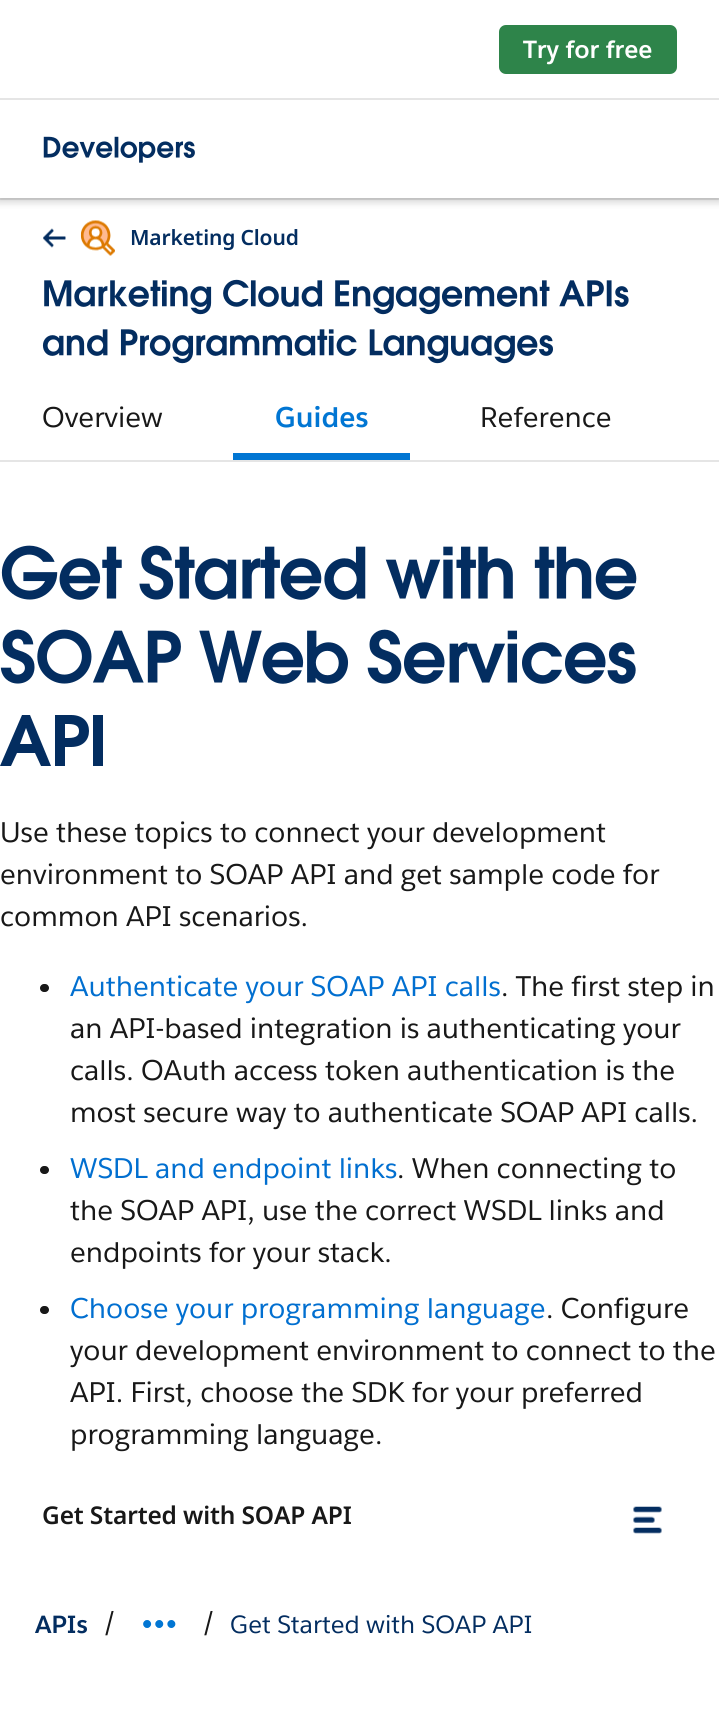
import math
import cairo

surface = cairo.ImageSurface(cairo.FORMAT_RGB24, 719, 1734)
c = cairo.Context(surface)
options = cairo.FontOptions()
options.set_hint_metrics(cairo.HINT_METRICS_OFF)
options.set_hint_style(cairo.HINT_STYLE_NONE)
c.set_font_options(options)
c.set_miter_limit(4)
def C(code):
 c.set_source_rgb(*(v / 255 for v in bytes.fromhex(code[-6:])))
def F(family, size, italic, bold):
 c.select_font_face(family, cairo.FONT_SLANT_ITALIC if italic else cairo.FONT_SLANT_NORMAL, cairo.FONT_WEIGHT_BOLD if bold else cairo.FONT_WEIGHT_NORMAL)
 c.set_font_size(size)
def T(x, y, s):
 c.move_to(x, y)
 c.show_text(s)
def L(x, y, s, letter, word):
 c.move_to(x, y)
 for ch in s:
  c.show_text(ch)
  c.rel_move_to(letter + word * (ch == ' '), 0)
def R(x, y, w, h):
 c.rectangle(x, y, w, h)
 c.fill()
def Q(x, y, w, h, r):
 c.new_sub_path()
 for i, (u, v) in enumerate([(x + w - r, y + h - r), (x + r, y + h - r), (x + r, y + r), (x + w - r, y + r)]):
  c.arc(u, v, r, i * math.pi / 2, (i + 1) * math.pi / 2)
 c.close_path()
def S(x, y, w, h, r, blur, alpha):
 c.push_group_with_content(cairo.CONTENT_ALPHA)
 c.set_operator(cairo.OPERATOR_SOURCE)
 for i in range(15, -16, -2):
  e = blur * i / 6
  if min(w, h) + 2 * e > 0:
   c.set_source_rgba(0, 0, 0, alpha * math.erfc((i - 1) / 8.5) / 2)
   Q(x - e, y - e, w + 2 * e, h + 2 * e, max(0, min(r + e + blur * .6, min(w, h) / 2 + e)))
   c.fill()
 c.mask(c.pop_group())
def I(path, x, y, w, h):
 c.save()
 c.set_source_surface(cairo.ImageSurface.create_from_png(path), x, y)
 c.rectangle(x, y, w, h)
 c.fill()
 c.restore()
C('ffffff')
c.paint()
C('e5e5e5')
R(0,198,719,2)
C('181818')
S(-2,100,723,103,0,3.5,.16)
S(0,98,719,100,0,2,.08)
C('ffffff')
R(0,94,719,4)
C('2e844a')
Q(501,27,174,45,5)
c.fill_preserve()
c.set_line_width(4)
c.stroke()
F('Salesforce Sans',24.5,0,1)
C('ffffff')
T(523,58,'Try for free')
R(0,100,719,98)
C('e5e5e5')
R(0,98,719,2)
I('1.png',43,136,152,27)
R(0,460,719,2)
I('2.png',43,228,23,20)
I('3.png',80,220,35,36)
F('Noto Sans SemiBold',21,0,0)
C('032d60')
L(130,245,'Marketing Cloud',-.15,0)
I('4.png',44,279,585,36)
I('5.png',42,329,511,35)
F('Salesforce Sans',28,0,0)
C('181818')
T(42,427,'Overview')
C('0176d3')
R(233,453,177,7)
F('Salesforce Sans',28,0,1)
T(275,427,'Guides')
F('Salesforce Sans',28,0,0)
C('181818')
T(480,427,'Reference')
I('6.png',1,545,636,55)
I('7.png',0,629,636,55)
C('032d60')
c.new_path()
c.move_to(51,766)
c.line_to(30,715)
c.line_to(22,715)
c.line_to(0,766)
c.line_to(11,766)
c.line_to(17,753)
c.line_to(35,753)
c.line_to(41,766)
c.close_path()
c.move_to(32,744)
c.line_to(20,744)
c.line_to(26,728)
c.close_path()
c.move_to(65,766)
c.line_to(65,747)
c.line_to(71,747)
c.curve_to(83,747,89,740,89,731)
c.curve_to(89,722,83,715,71,715)
c.line_to(55,715)
c.line_to(55,766)
c.close_path()
c.move_to(65,738)
c.line_to(65,724)
c.line_to(68,724)
c.curve_to(77,724,79,727,79,731)
c.curve_to(79,735,77,738,68,738)
c.close_path()
c.move_to(103,766)
c.line_to(103,715)
c.line_to(93,715)
c.line_to(93,766)
c.close_path()
c.fill()
C('181818')
T(0,842,'Use these topics to connect your development')
T(0,884,'environment to SOAP API and get sample code for')
T(0,926,'common API scenarios.')
Q(40,984,9,8,4)
c.fill()
C('016fd0')
T(70,996,'Authenticate your SOAP API calls')
C('181818')
T(501,996,'. The first step in')
T(70,1038,'an API-based integration is authenticating your')
T(70,1080,'calls. OAuth access token authentication is the')
T(70,1122,'most secure way to authenticate SOAP API calls.')
Q(40,1166,9,8,4)
c.fill()
C('016fd0')
T(70,1178,'WSDL and endpoint links')
C('181818')
T(397,1178,'. When connecting to')
T(70,1220,'the SOAP API, use the correct WSDL links and')
T(70,1262,'endpoints for your stack.')
Q(40,1306,9,8,4)
c.fill()
C('016fd0')
T(70,1318,'Choose your programming language')
C('181818')
T(546,1318,'. Configure')
T(70,1360,'your development environment to connect to the')
T(70,1402,'API. First, choose the SDK for your preferred')
T(70,1444,'programming language.')
F('Noto Sans SemiBold',24.5,0,0)
L(42,1524,'Get Started with SOAP API',-.15,0)
I('8.png',633,1506,29,28)
F('Salesforce Sans',24.5,0,1)
C('032d60')
T(35,1633,'APIs')
F('Salesforce Sans',28,0,0)
C('181818')
T(102,1633,'/')
I('9.png',143,1620,33,8)
T(201,1633,'/')
F('Salesforce Sans',24.5,0,0)
C('032d60')
T(230,1633,'Get Started with SOAP API')
surface.write_to_png('o.png')
